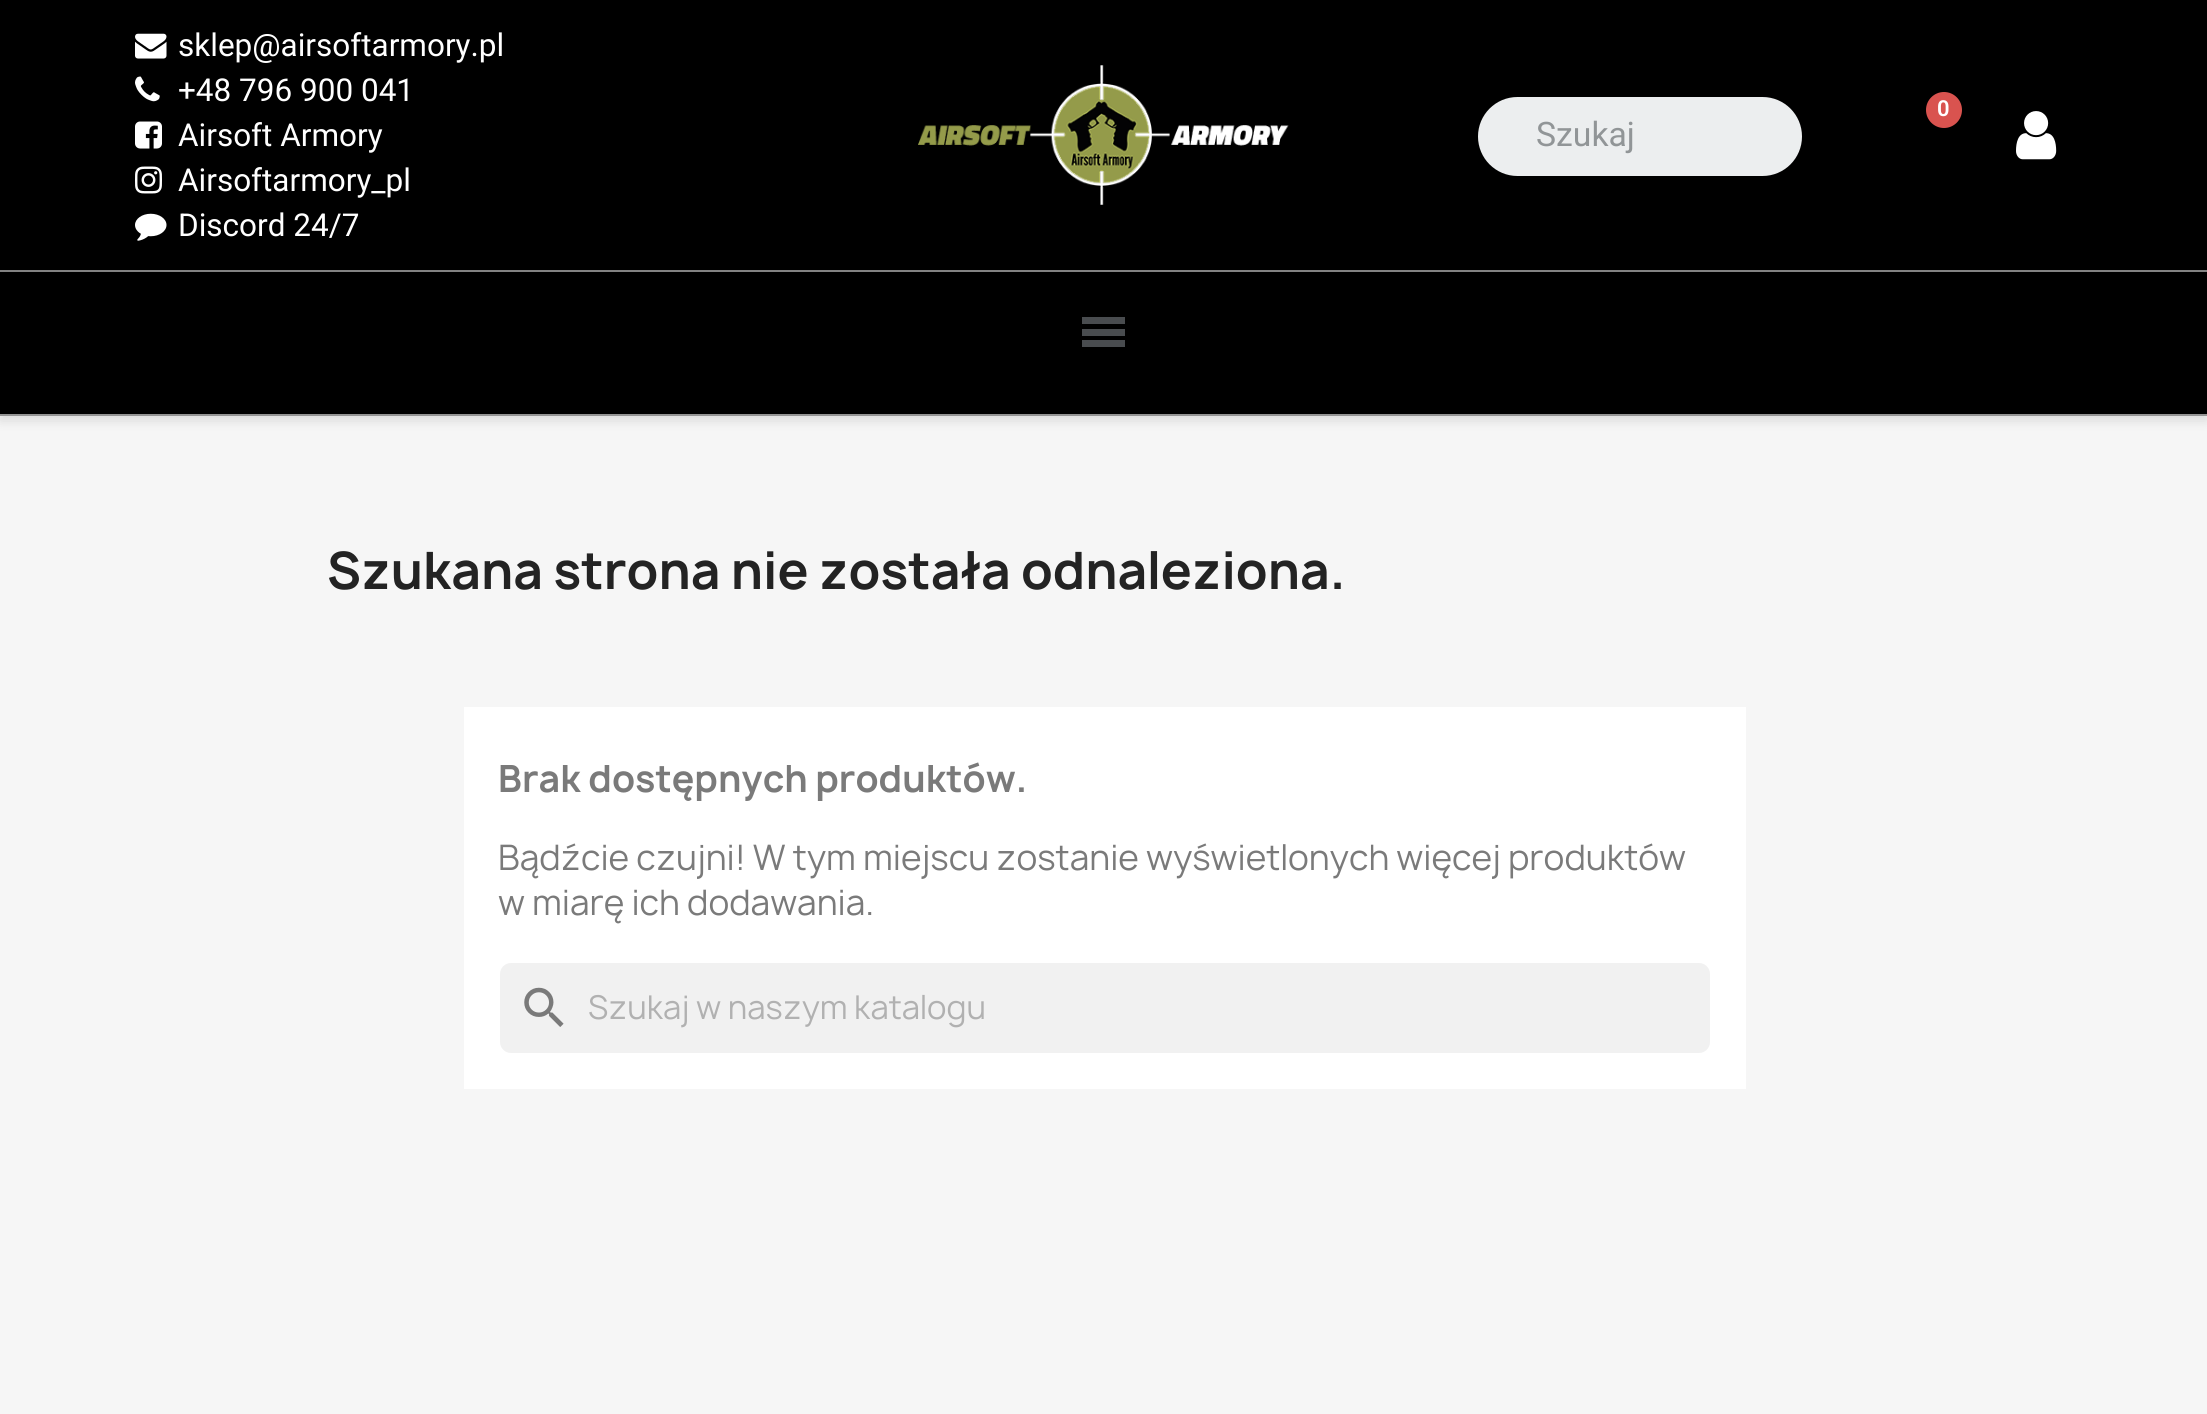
import math
import cairo

surface = cairo.ImageSurface(cairo.FORMAT_RGB24, 2207, 1414)
c = cairo.Context(surface)
options = cairo.FontOptions()
options.set_hint_metrics(cairo.HINT_METRICS_OFF)
options.set_hint_style(cairo.HINT_STYLE_NONE)
c.set_font_options(options)
c.set_miter_limit(4)
def C(code):
 c.set_source_rgb(*(v / 255 for v in bytes.fromhex(code[-6:])))
def F(family, size, italic, bold):
 c.select_font_face(family, cairo.FONT_SLANT_ITALIC if italic else cairo.FONT_SLANT_NORMAL, cairo.FONT_WEIGHT_BOLD if bold else cairo.FONT_WEIGHT_NORMAL)
 c.set_font_size(size)
def T(x, y, s):
 c.move_to(x, y)
 c.show_text(s)
def R(x, y, w, h):
 c.rectangle(x, y, w, h)
 c.fill()
def Q(x, y, w, h, r):
 c.new_sub_path()
 for i, (u, v) in enumerate([(x + w - r, y + h - r), (x + r, y + h - r), (x + r, y + r), (x + w - r, y + r)]):
  c.arc(u, v, r, i * math.pi / 2, (i + 1) * math.pi / 2)
 c.close_path()
def S(x, y, w, h, r, blur, alpha):
 c.push_group_with_content(cairo.CONTENT_ALPHA)
 c.set_operator(cairo.OPERATOR_SOURCE)
 for i in range(15, -16, -2):
  e = blur * i / 6
  if min(w, h) + 2 * e > 0:
   c.set_source_rgba(0, 0, 0, alpha * math.erfc((i - 1) / 8.5) / 2)
   Q(x - e, y - e, w + 2 * e, h + 2 * e, max(0, min(r + e + blur * .6, min(w, h) / 2 + e)))
   c.fill()
 c.mask(c.pop_group())
def I(path, x, y, w, h):
 c.save()
 c.set_source_surface(cairo.ImageSurface.create_from_png(path), x, y)
 c.rectangle(x, y, w, h)
 c.fill()
 c.restore()
C('f6f6f6')
c.paint()
C('000000')
S(0,5,2207,416,0,5.5,.11)
C('000000')
R(0,0,2207,270)
C('828282')
R(0,270,2207,2)
I('1.png',135,33,32,26)
F('Roboto',31.5,0,0)
C('ffffff')
T(178,56,'sklep@airsoftarmory.pl')
I('2.png',135,76,25,26)
T(178,101,'+48 796 900 041')
I('3.png',135,121,27,28)
T(178,146,'Airsoft Armory')
I('4.png',135,166,27,28)
T(178,191,'Airsoftarmory_pl')
I('5.png',135,213,32,28)
T(178,236,'Discord 24/7')
I('6.png',918,65,371,140)
C('d9534f')
c.arc(1944,110,18,0,2 * math.pi)
c.fill()
F('Roboto SemiBold',22,0,0)
C('ffffff')
T(1937,116,'0')
C('eceeef')
Q(1478,97,324,79,39.5)
c.fill()
F('Roboto',33.75,0,0)
C('919597')
T(1536,146,'Szukaj')
I('7.png',2016,111,41,49)
C('000000')
R(0,272,2207,142)
C('949494')
R(0,414,2207,2)
C('494c4f')
R(1082,329,43,7)
R(1082,317,43,7)
R(1082,340,43,7)
F('Manrope',49.5,0,1)
C('232323')
T(327,589,'Szukana strona nie została odnaleziona.')
C('ffffff')
R(464,707,1282,382)
F('Manrope',36,0,1)
C('7a7a7a')
T(498,792,'Brak dostępnych produktów.')
F('Manrope',33.75,0,0)
T(498,870,'Bądźcie czujni! W tym miejscu zostanie wyświetlonych więcej produktów')
T(498,915,'w miarę ich dodawania.')
C('f1f1f1')
Q(500,963,1210,90,11)
c.fill()
I('8.png',524,987,40,40)
F('Manrope',31.5,0,0)
C('b1b1b1')
T(588,1019,'Szukaj w naszym katalogu')
surface.write_to_png('o.png')
